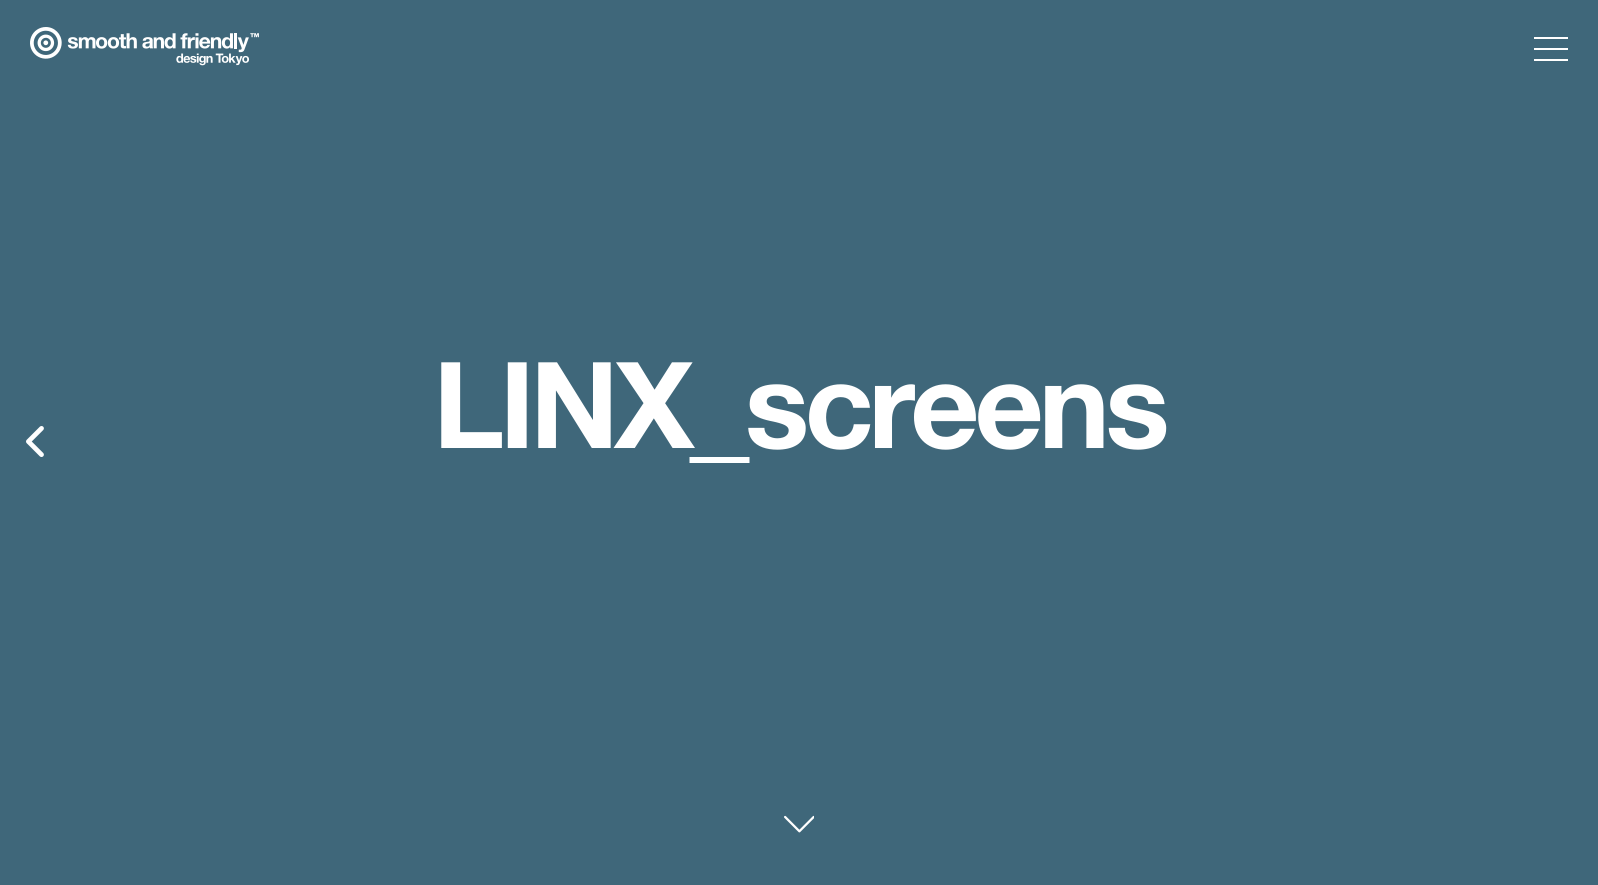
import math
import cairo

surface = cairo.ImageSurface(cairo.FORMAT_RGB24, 1598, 885)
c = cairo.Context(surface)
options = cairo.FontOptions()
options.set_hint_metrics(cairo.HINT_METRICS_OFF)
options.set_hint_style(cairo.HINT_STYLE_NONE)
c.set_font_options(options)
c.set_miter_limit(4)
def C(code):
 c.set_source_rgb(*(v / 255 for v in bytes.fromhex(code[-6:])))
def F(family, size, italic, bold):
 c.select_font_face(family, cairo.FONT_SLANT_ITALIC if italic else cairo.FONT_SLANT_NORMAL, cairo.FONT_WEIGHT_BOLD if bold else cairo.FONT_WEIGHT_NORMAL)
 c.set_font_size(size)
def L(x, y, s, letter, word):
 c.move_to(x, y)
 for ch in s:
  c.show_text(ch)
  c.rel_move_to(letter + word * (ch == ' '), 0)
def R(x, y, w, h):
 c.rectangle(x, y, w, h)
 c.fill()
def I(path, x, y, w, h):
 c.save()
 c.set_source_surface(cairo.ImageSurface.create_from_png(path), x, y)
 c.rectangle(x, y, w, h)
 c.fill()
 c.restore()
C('3f677a')
c.paint()
I('1.png',30,27,229,39)
C('ffffff')
R(1534,48,34,2)
R(1534,37,34,2)
R(1534,59,34,2)
I('2.png',26,426,18,31)
F('Helvetica Neue',120,0,1)
L(433,448,'LINX_screens',-4.75,0)
I('3.png',784,815,30,18)
surface.write_to_png('o.png')
